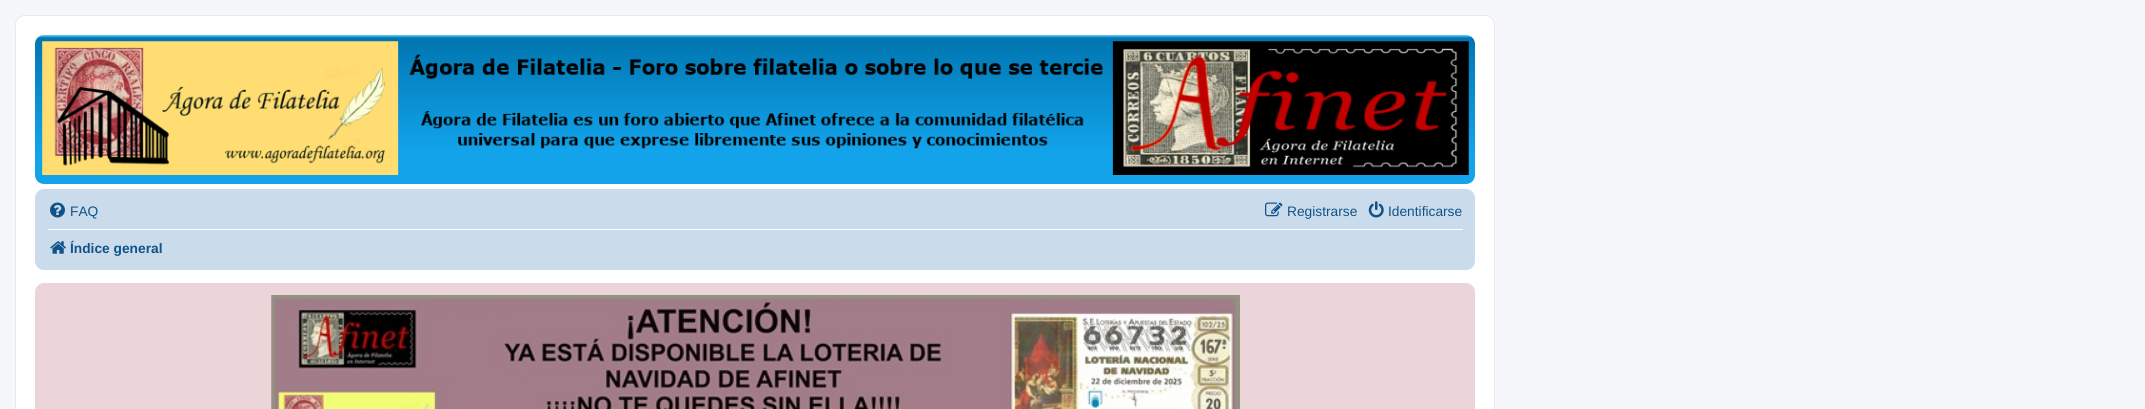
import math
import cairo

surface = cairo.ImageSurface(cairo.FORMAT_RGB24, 2145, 409)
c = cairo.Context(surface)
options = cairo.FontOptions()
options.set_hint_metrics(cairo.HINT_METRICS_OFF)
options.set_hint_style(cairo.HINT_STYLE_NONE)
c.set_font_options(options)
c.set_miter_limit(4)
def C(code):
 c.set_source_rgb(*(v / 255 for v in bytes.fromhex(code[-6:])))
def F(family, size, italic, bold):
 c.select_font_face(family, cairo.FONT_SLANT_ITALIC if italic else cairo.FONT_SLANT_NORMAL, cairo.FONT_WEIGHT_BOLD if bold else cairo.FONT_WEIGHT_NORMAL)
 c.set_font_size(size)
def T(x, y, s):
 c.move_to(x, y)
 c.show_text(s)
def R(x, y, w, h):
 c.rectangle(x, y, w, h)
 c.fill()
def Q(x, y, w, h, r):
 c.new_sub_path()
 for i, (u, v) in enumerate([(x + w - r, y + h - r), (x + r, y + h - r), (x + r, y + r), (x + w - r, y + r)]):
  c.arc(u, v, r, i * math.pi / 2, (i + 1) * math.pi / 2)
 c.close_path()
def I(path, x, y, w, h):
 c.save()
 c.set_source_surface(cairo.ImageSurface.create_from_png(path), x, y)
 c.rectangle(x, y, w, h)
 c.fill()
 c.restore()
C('f5f7fa')
c.paint()
C('ffffff')
Q(15.5,15.5,1479,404,9.5)
c.fill_preserve()
C('e6e9ed')
c.set_line_width(1)
c.stroke()
gradient = cairo.LinearGradient(755,35,755,184)
gradient.add_color_stop_rgba(0,0.416,0.808,1,1)
gradient.add_color_stop_rgba(.02,0,0.463,0.694,1)
gradient.add_color_stop_rgba(.77,0.071,0.639,0.922,1)
gradient.add_color_stop_rgba(1,0.071,0.639,0.922,1)
c.set_source(gradient)
Q(35,35,1440,149,9)
c.fill()
I('1.png',42,41,1427,134)
C('cadceb')
Q(35,189,1440,81,9)
c.fill()
I('2.png',50,202,15,16)
F('Liberation Sans',13.75,0,0)
C('105289')
T(70,216,'FAQ')
I('3.png',1265,202,18,15)
T(1287,216,'Registrarse')
I('4.png',1368,201,16,17)
T(1388,216,'Identificarse')
C('ffffff')
R(48,229,1415,1)
I('5.png',50,241,16,13)
F('Liberation Sans',13.75,0,1)
C('105289')
T(70,253,'Índice general')
C('ecd5d8')
Q(35,283,1440,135,9)
c.fill()
I('6.png',271,295,969,114)
surface.write_to_png('o.png')
